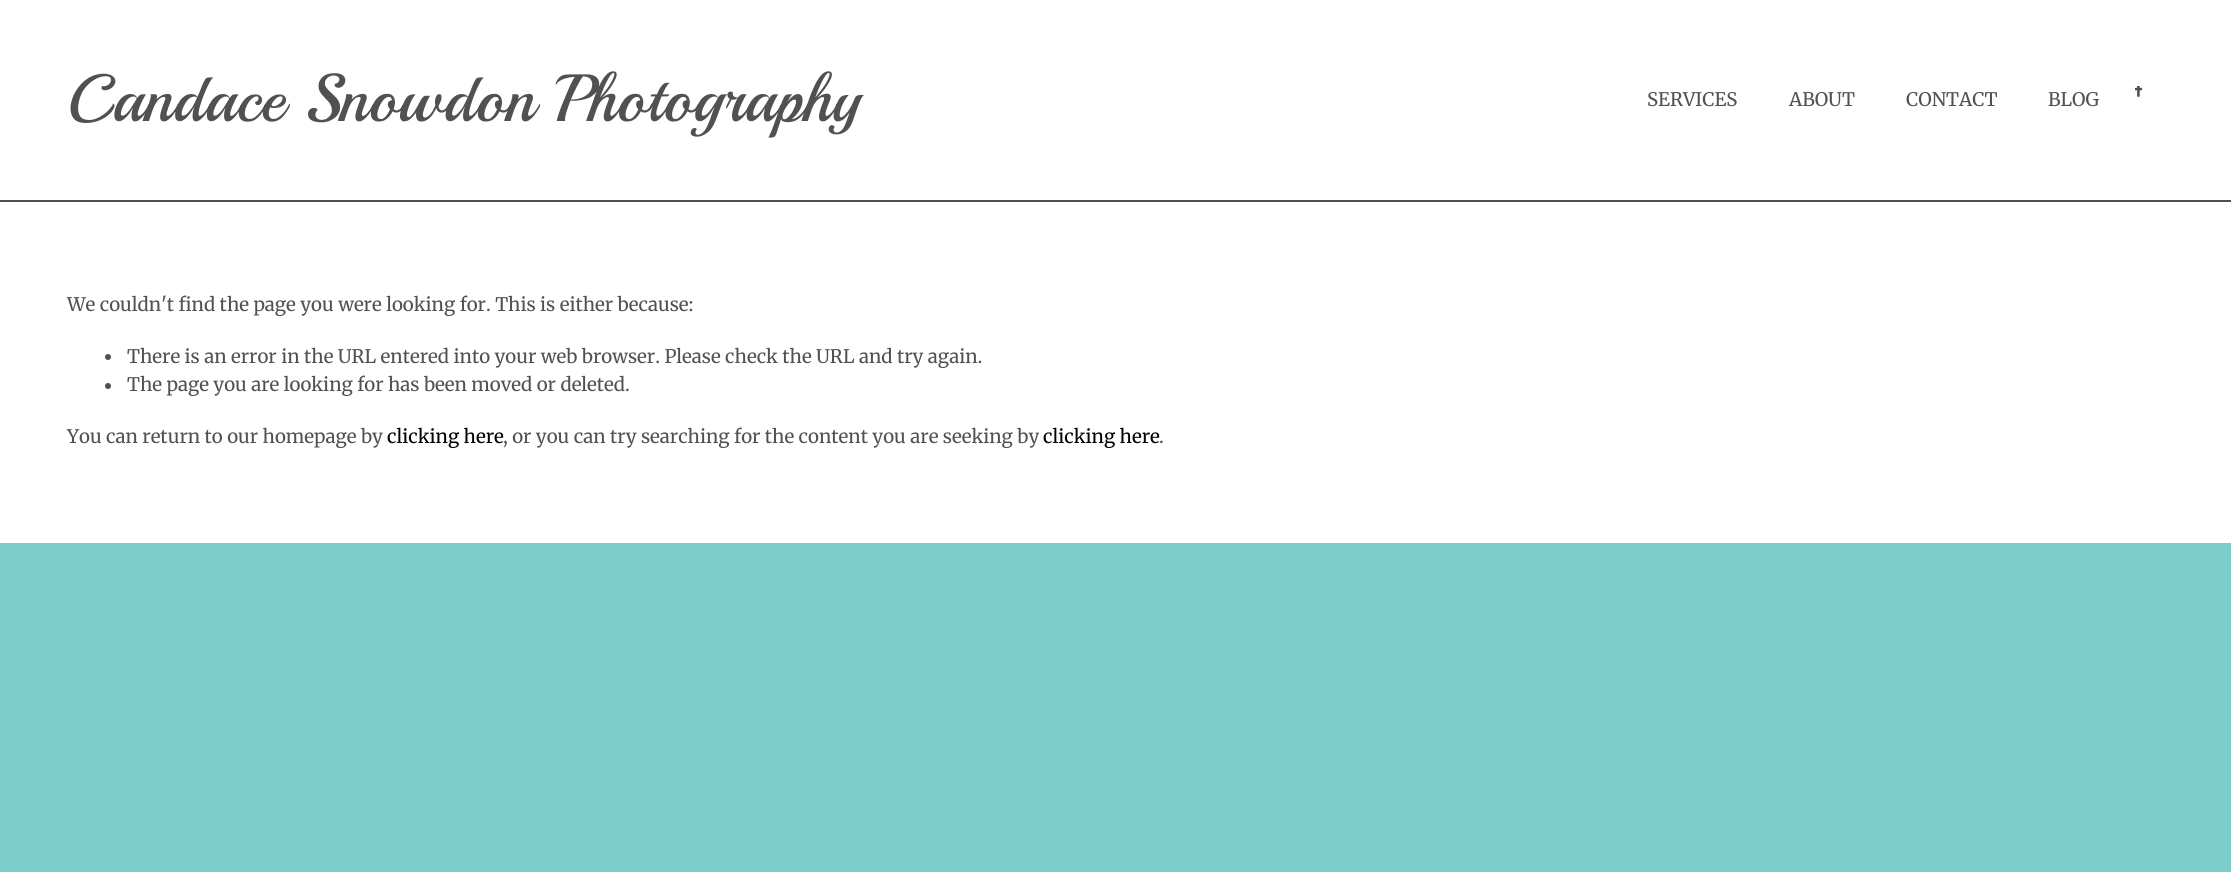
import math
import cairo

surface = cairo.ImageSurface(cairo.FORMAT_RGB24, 2231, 872)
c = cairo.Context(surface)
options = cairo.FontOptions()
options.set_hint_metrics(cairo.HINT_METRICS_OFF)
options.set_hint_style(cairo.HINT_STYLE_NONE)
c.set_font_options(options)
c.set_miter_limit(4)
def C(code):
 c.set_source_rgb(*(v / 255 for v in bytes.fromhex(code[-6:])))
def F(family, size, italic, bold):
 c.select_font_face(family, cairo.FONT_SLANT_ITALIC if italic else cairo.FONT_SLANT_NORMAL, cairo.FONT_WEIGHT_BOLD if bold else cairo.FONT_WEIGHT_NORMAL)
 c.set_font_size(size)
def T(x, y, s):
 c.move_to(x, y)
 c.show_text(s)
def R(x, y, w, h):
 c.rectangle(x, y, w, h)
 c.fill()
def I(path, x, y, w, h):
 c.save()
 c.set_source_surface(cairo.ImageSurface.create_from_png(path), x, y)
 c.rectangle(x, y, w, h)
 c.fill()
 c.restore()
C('ffffff')
c.paint()
F('Playball',66.8,0,0)
C('515151')
T(67,121,'Candace Snowdon Photography')
F('Merriweather',18.65,0,0)
T(1647,106,'SERVICES')
T(1789,106,'ABOUT')
T(1906,106,'CONTACT')
T(2048,106,'BLOG')
I('1.png',2135,86,8,11)
R(0,200,2231,2)
T(67,311,'We couldn\'t find the page you were looking for. This is either because:')
c.new_path()
c.arc(108,357,3,0,2 * math.pi)
c.fill()
T(127,363,'There is an error in the URL entered into your web browser. Please check the URL and try again.')
c.new_path()
c.arc(108,386,3,0,2 * math.pi)
c.fill()
T(127,391,'The page you are looking for has been moved or deleted.')
T(67,443,'You can return to our homepage by')
C('000000')
T(387,443,'clicking here')
C('515151')
T(503,443,', or you can try searching for the content you are seeking by')
C('000000')
T(1043,443,'clicking here')
C('515151')
T(1159,443,'.')
C('7ccdca')
R(0,543,2231,329)
surface.write_to_png('o.png')
